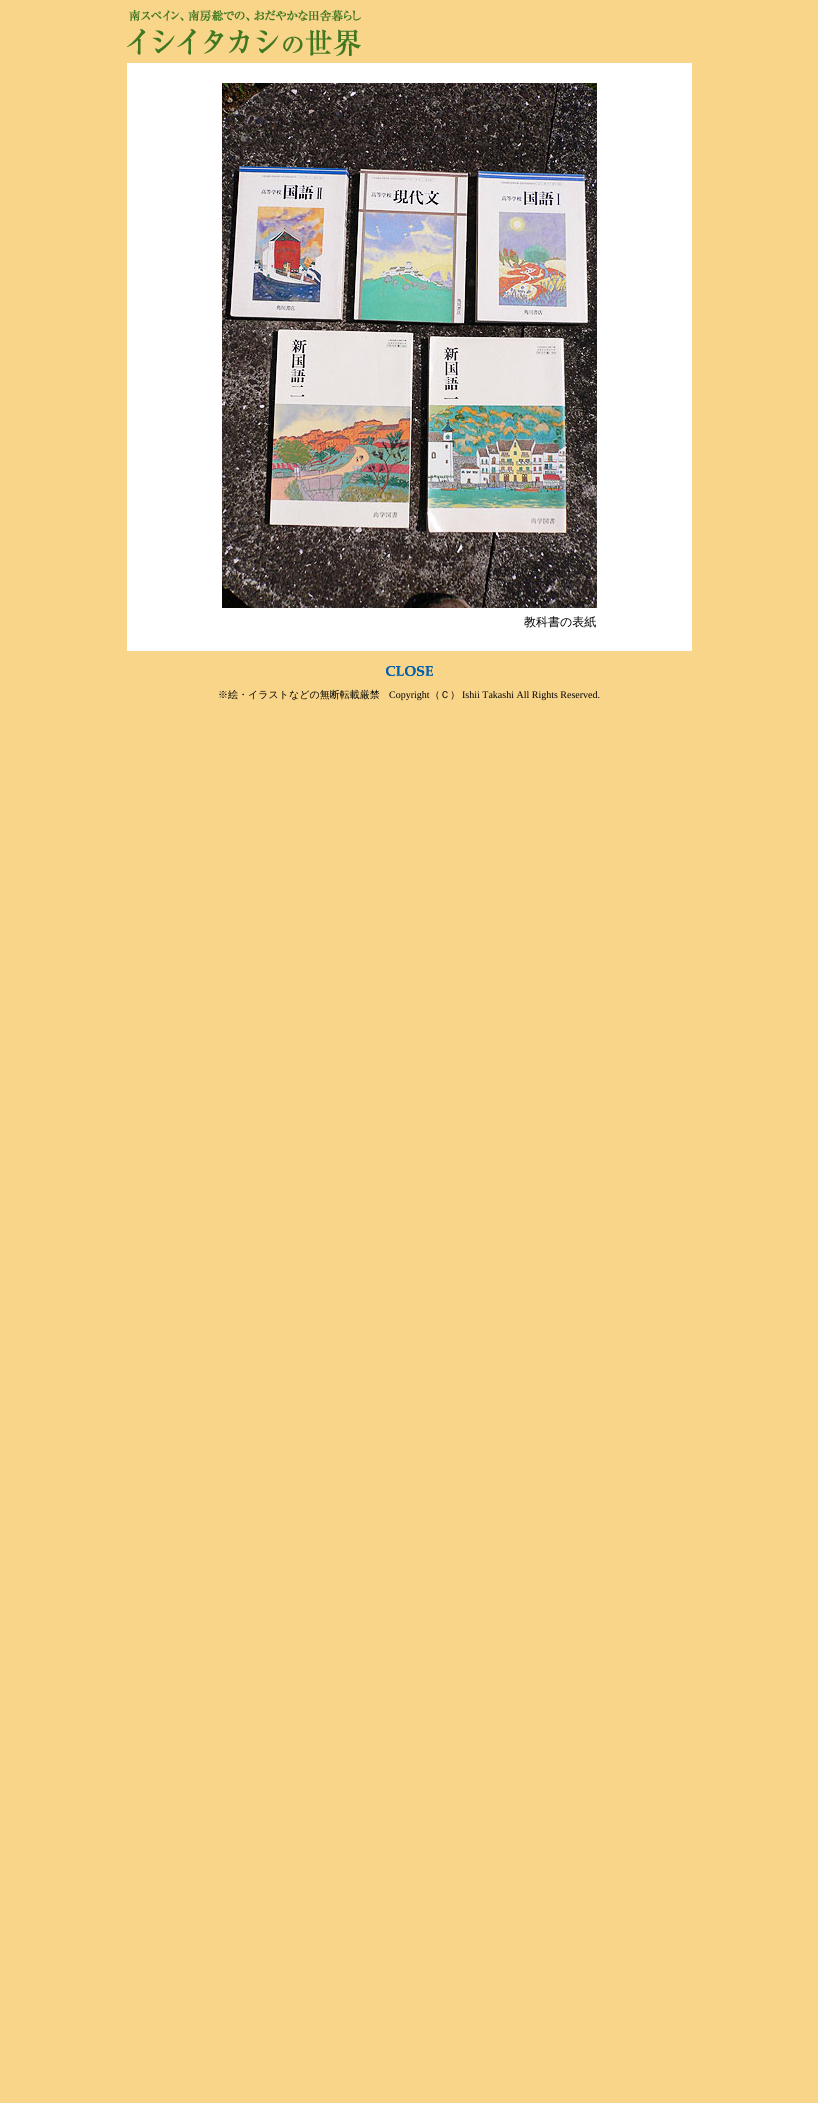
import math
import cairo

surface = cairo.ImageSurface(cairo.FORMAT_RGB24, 818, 2103)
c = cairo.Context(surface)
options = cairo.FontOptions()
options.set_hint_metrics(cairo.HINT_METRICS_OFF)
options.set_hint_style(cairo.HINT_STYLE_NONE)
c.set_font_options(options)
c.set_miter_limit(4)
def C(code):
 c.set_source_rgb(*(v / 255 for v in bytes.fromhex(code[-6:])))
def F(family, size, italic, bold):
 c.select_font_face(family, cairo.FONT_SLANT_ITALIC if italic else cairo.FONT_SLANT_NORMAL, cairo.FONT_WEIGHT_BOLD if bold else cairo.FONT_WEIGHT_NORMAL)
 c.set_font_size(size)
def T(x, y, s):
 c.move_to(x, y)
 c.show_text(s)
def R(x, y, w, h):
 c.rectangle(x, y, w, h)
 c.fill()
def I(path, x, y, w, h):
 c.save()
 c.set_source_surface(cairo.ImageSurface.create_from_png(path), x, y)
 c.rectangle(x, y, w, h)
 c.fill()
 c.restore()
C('f9d58a')
c.paint()
I('1.png',127,10,234,46)
C('ffffff')
R(127,63,565,588)
I('2.png',222,83,375,525)
F('WenQuanYi Zen Hei Medium',12,0,0)
C('000000')
T(524,626,'教科書の表紙')
I('3.png',386,666,47,10)
F('WenQuanYi Zen Hei Medium',10,0,0)
T(218,698,'※絵・イラストなどの無断転載厳禁')
F('Liberation Serif',10,0,0)
T(389,698,'Copyright')
F('WenQuanYi Zen Hei Medium',10,0,0)
T(430,698,'（Ｃ）')
F('Liberation Serif',10,0,0)
T(462,698,'Ishii Takashi All Rights Reserved.')
surface.write_to_png('o.png')
